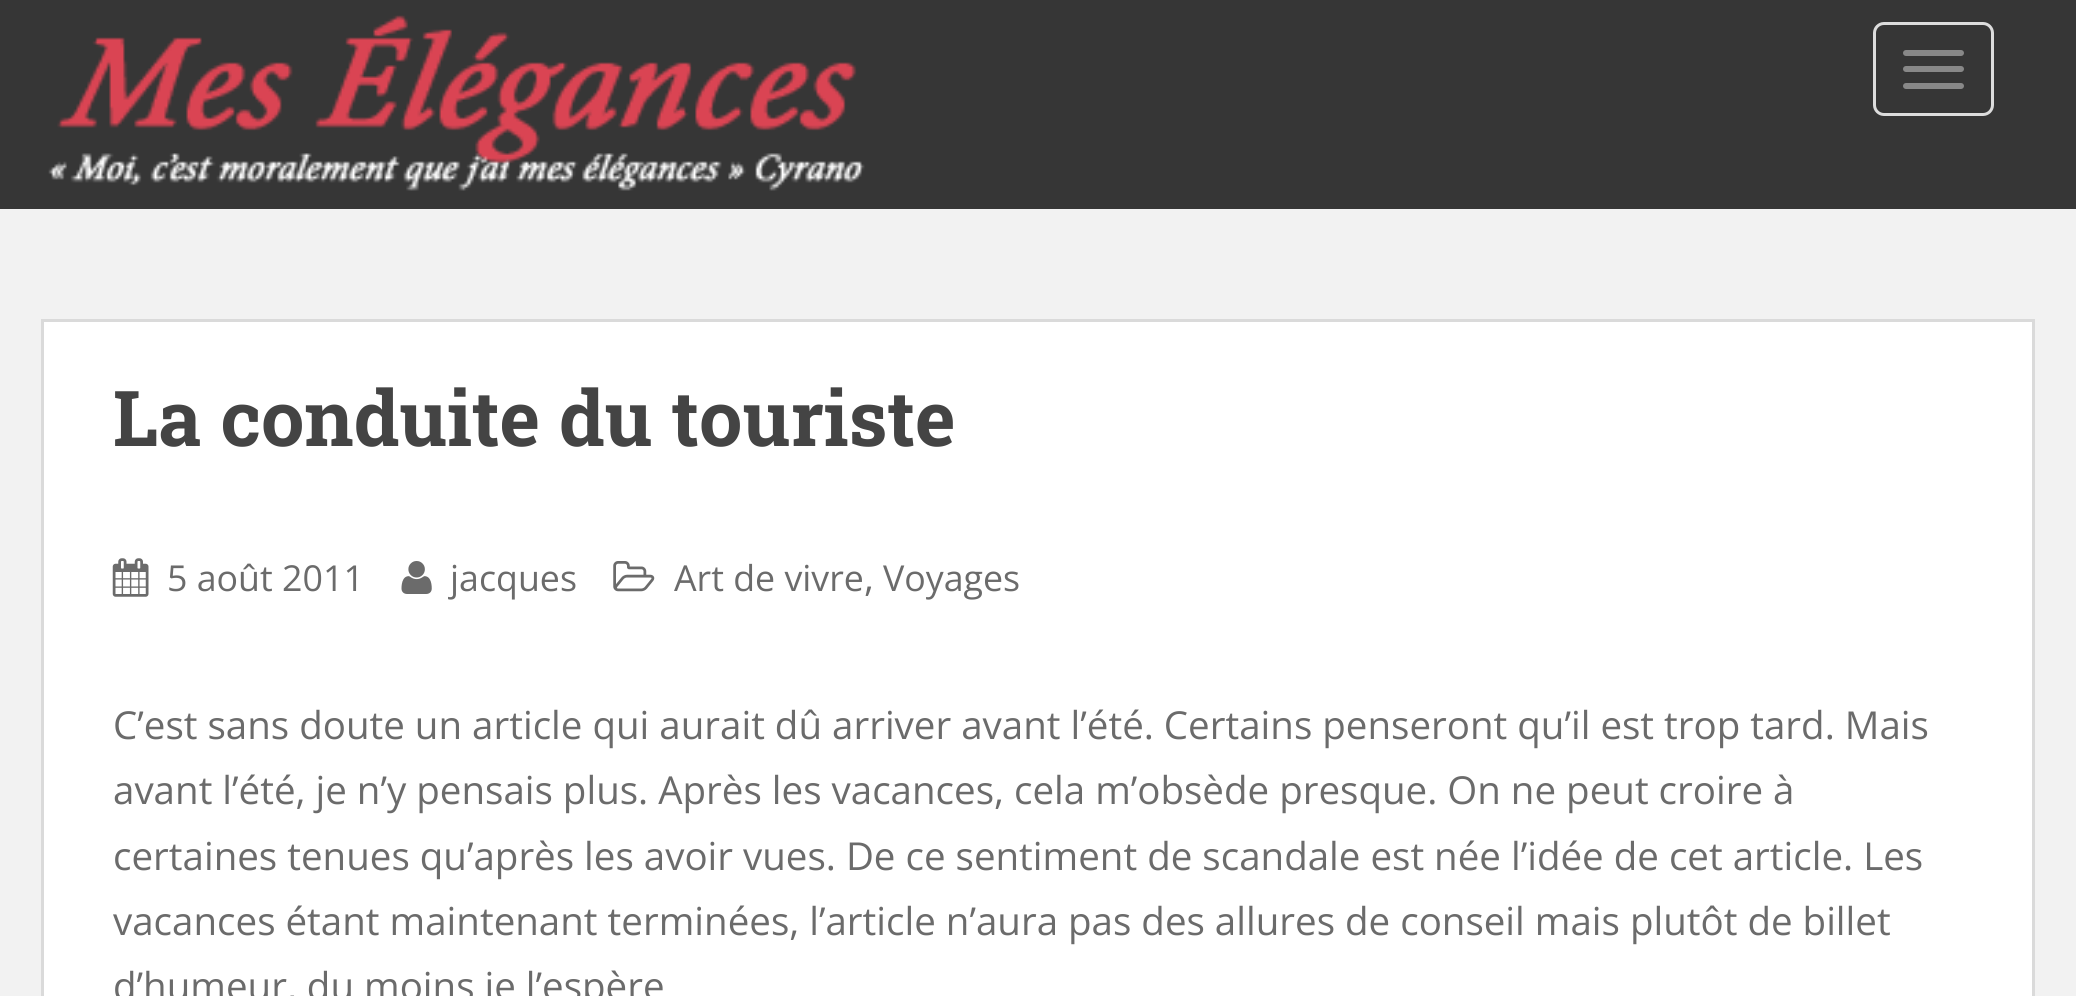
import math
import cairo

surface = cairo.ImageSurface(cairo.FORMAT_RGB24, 2076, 996)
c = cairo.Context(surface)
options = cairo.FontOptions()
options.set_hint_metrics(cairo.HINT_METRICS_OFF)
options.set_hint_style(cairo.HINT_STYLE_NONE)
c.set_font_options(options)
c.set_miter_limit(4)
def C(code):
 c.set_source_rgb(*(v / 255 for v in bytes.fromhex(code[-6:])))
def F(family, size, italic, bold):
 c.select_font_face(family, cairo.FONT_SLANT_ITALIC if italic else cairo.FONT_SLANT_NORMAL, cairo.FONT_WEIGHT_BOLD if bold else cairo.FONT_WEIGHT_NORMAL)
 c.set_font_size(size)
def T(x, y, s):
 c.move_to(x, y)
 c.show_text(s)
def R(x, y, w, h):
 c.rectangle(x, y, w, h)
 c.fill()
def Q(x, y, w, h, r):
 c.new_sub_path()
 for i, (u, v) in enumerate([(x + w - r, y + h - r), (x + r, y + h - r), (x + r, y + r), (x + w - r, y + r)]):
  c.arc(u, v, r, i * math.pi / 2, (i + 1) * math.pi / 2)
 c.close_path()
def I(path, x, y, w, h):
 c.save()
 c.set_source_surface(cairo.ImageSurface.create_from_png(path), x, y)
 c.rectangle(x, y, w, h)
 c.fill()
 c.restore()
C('f2f2f2')
c.paint()
C('363636')
R(0,0,2076,209)
I('1.png',48,15,817,176)
Q(1874.5,23.5,118,91,9.5)
C('dddddd')
c.set_line_width(3)
c.stroke()
C('888888')
Q(1903,50,61,6,3)
c.fill()
Q(1903,66,61,6,3)
c.fill()
Q(1903,83,61,6,3)
c.fill()
C('ffffff')
c.rectangle(42.5,320.5,1991,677)
c.fill_preserve()
C('dadada')
c.stroke()
F('Roboto Slab',77,0,1)
C('444444')
T(113,446,'La conduite du touriste')
I('2.png',112,558,37,39)
F('Open Sans',35.75,0,0)
C('6b6b6b')
T(167,591,'5 août 2011')
I('3.png',401,561,31,33)
T(450,591,'jacques')
I('4.png',613,561,42,31)
T(674,591,'Art de vivre')
F('Open Sans',38.5,0,0)
T(864,591,',')
F('Open Sans',35.75,0,0)
T(883,591,'Voyages')
F('Open Sans',38.5,0,0)
T(113,739,'C’est sans doute un article qui aurait dû arriver avant l’été. Certains penseront qu’il est trop tard. Mais')
T(113,804,'avant l’été, je n’y pensais plus. Après les vacances, cela m’obsède presque. On ne peut croire à')
T(113,870,'certaines tenues qu’après les avoir vues. De ce sentiment de scandale est née l’idée de cet article. Les')
T(113,935,'vacances étant maintenant terminées, l’article n’aura pas des allures de conseil mais plutôt de billet')
T(113,1000,'d’humeur, du moins je l’espère')
surface.write_to_png('o.png')
